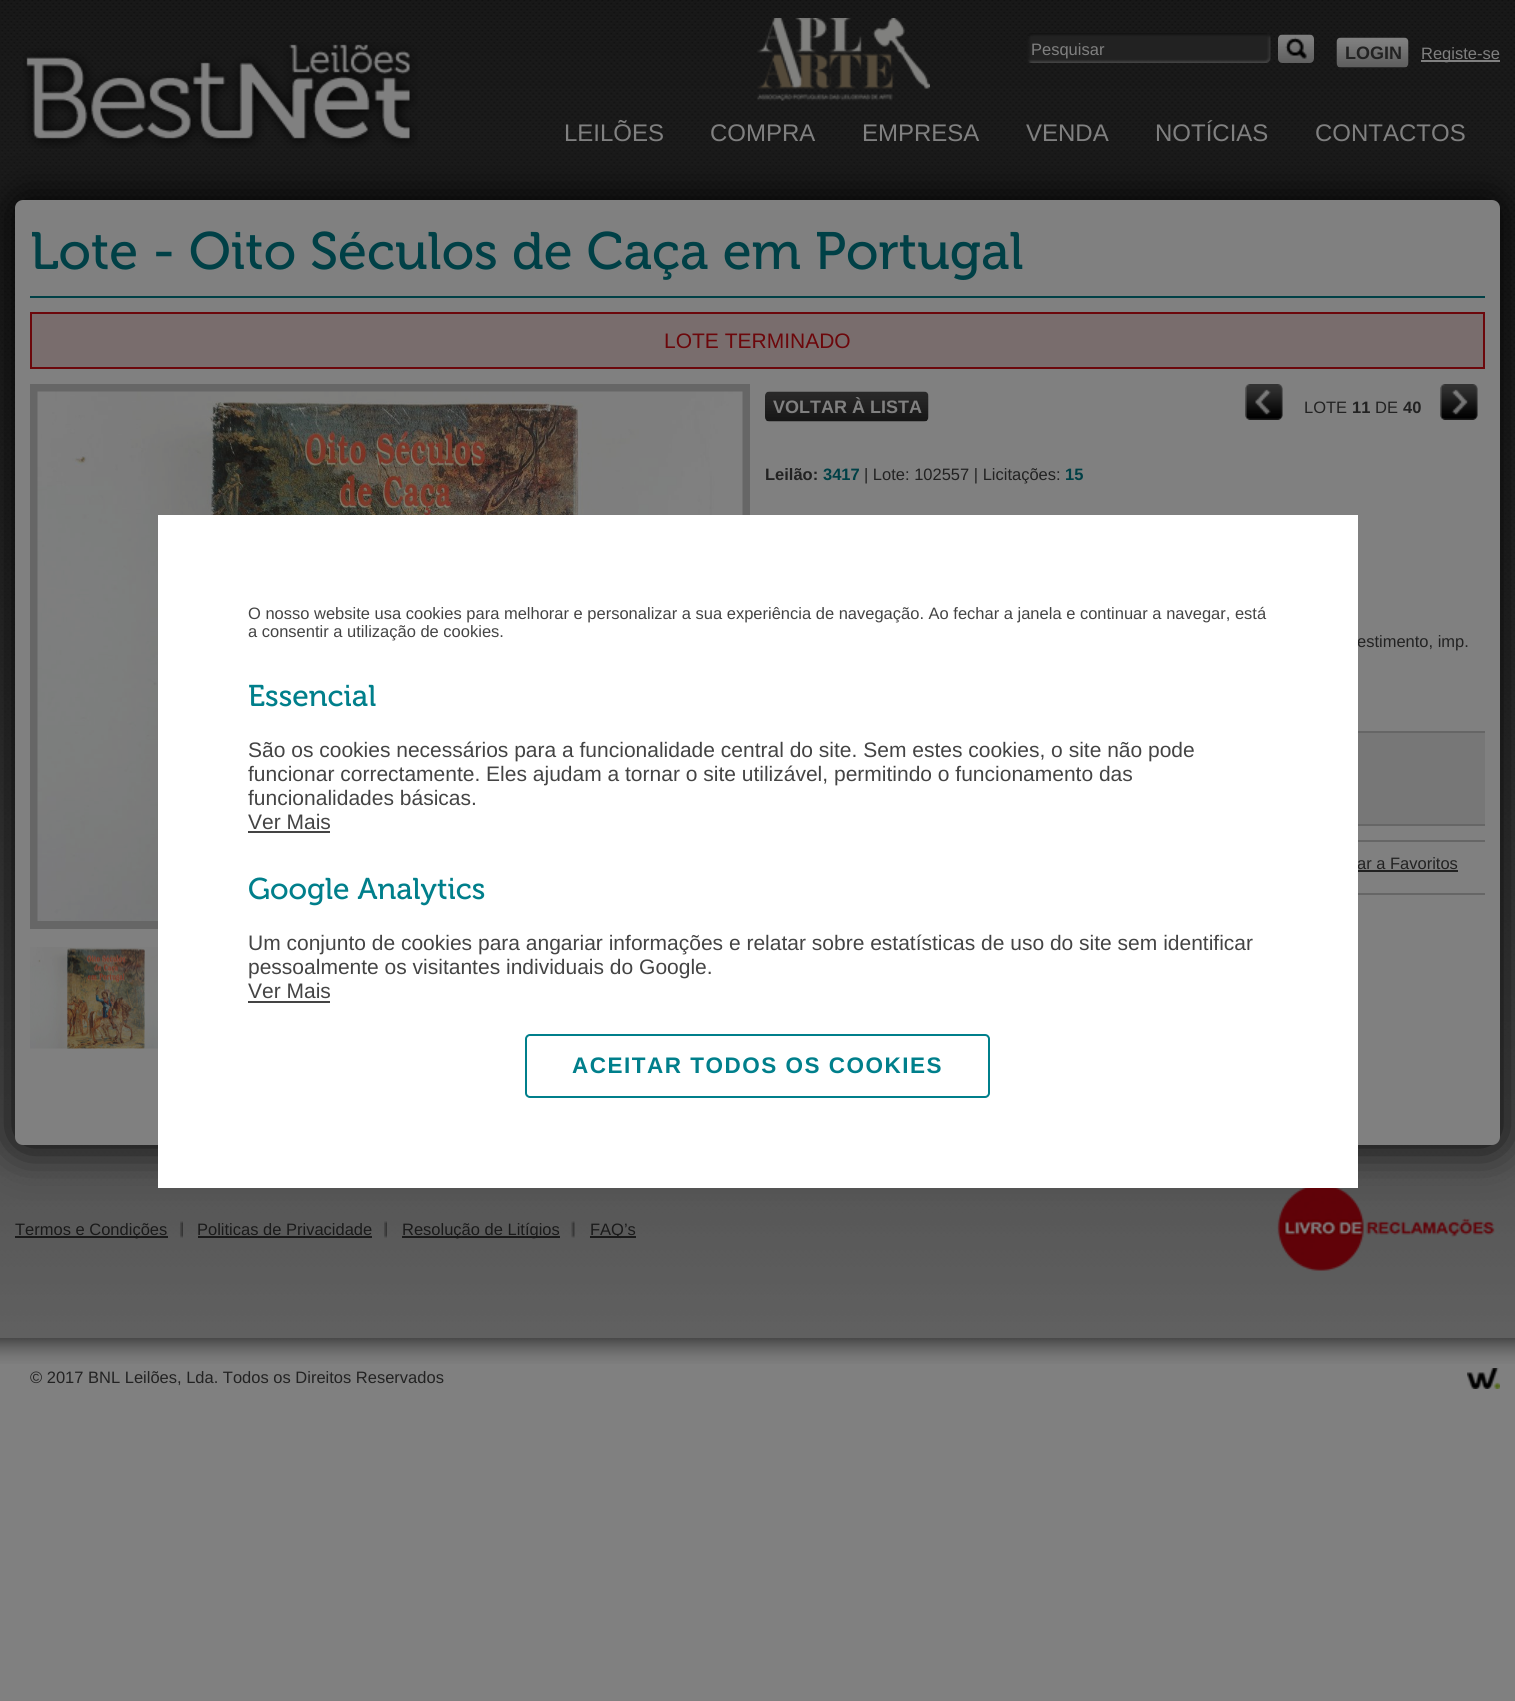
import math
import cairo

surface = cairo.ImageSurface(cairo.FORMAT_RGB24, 1515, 1701)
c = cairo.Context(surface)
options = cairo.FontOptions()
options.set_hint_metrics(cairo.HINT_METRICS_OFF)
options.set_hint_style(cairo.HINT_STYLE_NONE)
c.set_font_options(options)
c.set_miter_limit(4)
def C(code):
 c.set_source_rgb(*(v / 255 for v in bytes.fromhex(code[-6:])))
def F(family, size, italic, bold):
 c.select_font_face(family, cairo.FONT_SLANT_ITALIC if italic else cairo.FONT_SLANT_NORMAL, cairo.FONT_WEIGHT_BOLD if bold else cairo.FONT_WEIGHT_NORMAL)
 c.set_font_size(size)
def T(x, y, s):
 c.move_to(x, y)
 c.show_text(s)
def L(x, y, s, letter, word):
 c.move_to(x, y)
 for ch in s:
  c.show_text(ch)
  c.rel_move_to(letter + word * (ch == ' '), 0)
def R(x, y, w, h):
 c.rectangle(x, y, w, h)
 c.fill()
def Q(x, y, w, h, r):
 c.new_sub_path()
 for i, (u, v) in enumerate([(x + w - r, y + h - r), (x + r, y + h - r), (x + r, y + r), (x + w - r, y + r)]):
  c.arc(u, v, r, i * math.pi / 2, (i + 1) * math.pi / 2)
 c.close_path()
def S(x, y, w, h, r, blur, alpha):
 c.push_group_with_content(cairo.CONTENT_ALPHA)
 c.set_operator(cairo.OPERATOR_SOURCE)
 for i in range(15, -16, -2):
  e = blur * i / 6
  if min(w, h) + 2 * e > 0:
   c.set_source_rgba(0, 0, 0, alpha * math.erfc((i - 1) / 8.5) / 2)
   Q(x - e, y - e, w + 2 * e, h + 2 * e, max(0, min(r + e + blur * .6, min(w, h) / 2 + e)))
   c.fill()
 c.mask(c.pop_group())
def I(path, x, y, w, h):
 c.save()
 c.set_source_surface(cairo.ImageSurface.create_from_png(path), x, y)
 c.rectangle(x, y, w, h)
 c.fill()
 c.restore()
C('808080')
c.paint()
I('1.png',0,0,1515,1338)
C('000000')
S(15,200,1485,945,8,22.5,1)
I('2.png',23,42,395,107)
I('3.png',757,18,173,83)
I('4.png',1027,33,244,30)
F('Liberation Sans',16.5,0,0)
C('808080')
T(1031,55,'Pesquisar')
I('5.png',1278,34,36,29)
I('6.png',1285,37,22,22)
I('7.png',1336,37,73,31)
F('Liberation Sans',18,0,1)
C('222222')
T(1345,59,'LOGIN')
C('808080')
R(1421,60,79,2)
F('Liberation Sans',16.5,0,0)
T(1421,59,'Registe-se')
F('Liberation Sans',24,0,0)
T(564,141,'LEILÕES')
T(710,141,'COMPRA')
T(862,141,'EMPRESA')
T(1026,141,'VENDA')
T(1155,141,'NOTÍCIAS')
T(1315,141,'CONTACTOS')
Q(15,200,1485,945,8)
c.fill()
C('004046')
R(30,296,1455,2)
F('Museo',52.5,0,0)
T(30,269,'Lote - Oito Séculos de Caça em Portugal')
C('796d6d')
c.rectangle(31,313,1453,55)
c.fill_preserve()
C('6c070b')
c.stroke()
F('Liberation Sans',21,0,0)
T(664,348,'LOTE TERMINADO')
c.rectangle(34,388,712,537)
C('666666')
c.set_line_width(8)
c.stroke()
I('8.png',37,391,706,530)
I('9.png',30,947,128,102)
I('10.png',765,391,164,31)
F('Liberation Sans',18,0,1)
C('808080')
T(773,413,'VOLTAR À LISTA')
I('11.png',1245,384,38,36)
F('Liberation Sans',16.5,0,0)
C('222222')
T(1304,413,'LOTE')
F('Liberation Sans',16.5,0,1)
T(1352,413,'11')
F('Liberation Sans',16.5,0,0)
T(1375,413,'DE')
F('Liberation Sans',16.5,0,1)
T(1403,413,'40')
I('12.png',1440,384,38,36)
T(765,480,'Leilão:')
C('004046')
T(823,480,'3417')
F('Liberation Sans',16.5,0,0)
C('222222')
T(864,480,'| Lote: 102557 | Licitações:')
F('Liberation Sans',16.5,0,1)
C('004046')
T(1065,480,'15')
F('Liberation Sans',16.5,0,0)
C('222222')
T(1357,647,'estimento, imp.')
C('777777')
R(1358,733,127,91)
C('666666')
R(1358,731,127,2)
R(1358,824,127,2)
R(1358,840,127,2)
R(1358,893,127,2)
C('222222')
T(1357,869,'ar a Favoritos')
R(1358,870,100,2)
I('13.png',180,1221,3,17)
C('1a1a1a')
R(15,1236,153,2)
T(15,1235,'Termos e Condições')
I('14.png',384,1221,3,17)
T(197,1235,'Politicas de Privacidade')
R(198,1236,174,2)
I('15.png',571,1221,4,17)
R(402,1236,158,2)
T(402,1235,'Resolução de Litígios')
R(590,1236,46,2)
T(590,1235,'FAQ’s')
I('16.png',1277,1188,218,83)
C('ffffff')
R(158,515,1200,673)
C('444444')
T(248,619,'O nosso website usa cookies para melhorar e personalizar a sua experiência de navegação. Ao fechar a janela e continuar a navegar, está')
T(248,637,'a consentir a utilização de cookies.')
F('Museo',30,0,0)
C('007f8b')
T(248,706,'Essencial')
F('Liberation Sans',21,0,0)
C('444444')
T(248,757,'São os cookies necessários para a funcionalidade central do site. Sem estes cookies, o site não pode')
T(248,781,'funcionar correctamente. Eles ajudam a tornar o site utilizável, permitindo o funcionamento das')
T(248,805,'funcionalidades básicas.')
T(248,829,'Ver Mais')
R(248,831,82,2)
F('Museo',30,0,0)
C('007f8b')
T(248,899,'Google Analytics')
F('Liberation Sans',21,0,0)
C('444444')
T(248,950,'Um conjunto de cookies para angariar informações e relatar sobre estatísticas de uso do site sem identificar')
T(248,974,'pessoalmente os visitantes individuais do Google.')
T(248,998,'Ver Mais')
R(248,1001,82,2)
Q(526,1035,463,62,4)
C('007f8b')
c.set_line_width(2)
c.stroke()
F('Liberation Sans',22.5,0,1)
L(572,1073,'ACEITAR TODOS OS COOKIES',1.5,0)
I('17.png',0,1338,1515,26)
F('Liberation Sans',16.5,0,0)
C('222222')
T(30,1383,'© 2017 BNL Leilões, Lda. Todos os Direitos Reservados')
I('18.png',1467,1368,33,21)
surface.write_to_png('o.png')
